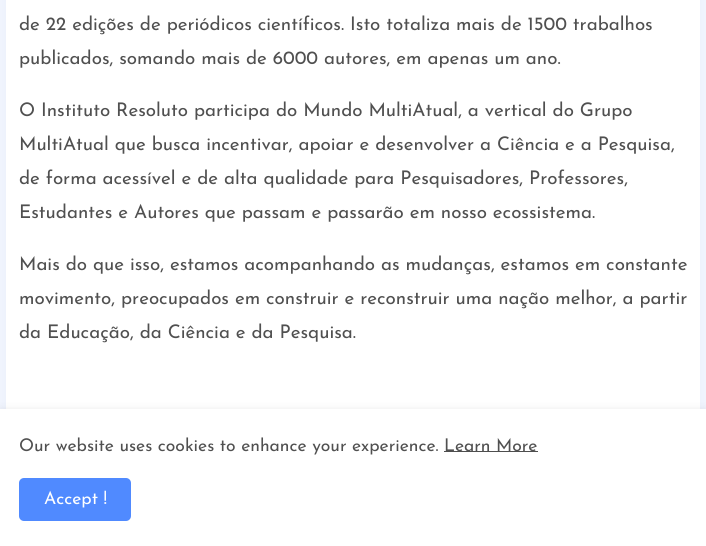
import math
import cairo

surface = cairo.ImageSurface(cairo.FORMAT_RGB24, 706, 546)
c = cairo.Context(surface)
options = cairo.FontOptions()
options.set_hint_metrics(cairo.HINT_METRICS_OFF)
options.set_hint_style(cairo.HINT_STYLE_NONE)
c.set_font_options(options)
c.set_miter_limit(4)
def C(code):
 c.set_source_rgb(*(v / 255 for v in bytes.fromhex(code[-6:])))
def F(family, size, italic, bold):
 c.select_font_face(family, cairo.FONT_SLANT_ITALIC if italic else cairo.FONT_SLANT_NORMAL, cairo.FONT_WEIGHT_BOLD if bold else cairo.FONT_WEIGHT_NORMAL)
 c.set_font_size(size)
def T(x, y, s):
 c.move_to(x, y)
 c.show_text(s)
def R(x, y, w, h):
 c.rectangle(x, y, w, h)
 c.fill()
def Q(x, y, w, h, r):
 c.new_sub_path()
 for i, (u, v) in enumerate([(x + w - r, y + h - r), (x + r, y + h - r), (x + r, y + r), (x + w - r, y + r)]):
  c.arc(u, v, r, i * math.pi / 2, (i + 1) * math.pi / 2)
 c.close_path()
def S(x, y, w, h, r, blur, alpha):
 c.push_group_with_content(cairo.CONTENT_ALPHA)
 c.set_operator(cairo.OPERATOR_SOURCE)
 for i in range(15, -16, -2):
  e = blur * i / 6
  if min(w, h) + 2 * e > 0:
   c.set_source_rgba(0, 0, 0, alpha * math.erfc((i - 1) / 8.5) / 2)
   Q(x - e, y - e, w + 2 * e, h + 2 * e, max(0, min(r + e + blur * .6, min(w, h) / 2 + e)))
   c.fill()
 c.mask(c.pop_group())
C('f3f6fd')
c.paint()
C('185ee0')
S(6,-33,694,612,10,7.5,.05)
C('ffffff')
R(6,0,694,409)
F('Josefin Sans',18.75,0,0)
C('505050')
T(19,30,'de 22 edições de periódicos científicos. Isto totaliza mais de 1500 trabalhos')
T(19,64,'publicados, somando mais de 6000 autores, em apenas um ano.')
T(19,116,'O Instituto Resoluto participa do Mundo MultiAtual, a vertical do Grupo')
T(19,150,'MultiAtual que busca incentivar, apoiar e desenvolver a Ciência e a Pesquisa,')
T(19,184,'de forma acessível e de alta qualidade para Pesquisadores, Professores,')
T(19,218,'Estudantes e Autores que passam e passarão em nosso ecossistema.')
T(19,270,'Mais do que isso, estamos acompanhando as mudanças, estamos em constante')
T(19,304,'movimento, preocupados em construir e reconstruir uma nação melhor, a partir')
T(19,338,'da Educação, da Ciência e da Pesquisa.')
C('000000')
S(0,411,706,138,0,5,.11)
C('ffffff')
R(0,409,706,137)
F('Josefin Sans',17.5,0,0)
C('505050')
T(19,451,'Our website uses cookies to enhance your experience.')
C('4e4e4e')
R(444,451,94,1)
C('505050')
T(444,451,'Learn More')
C('508aff')
Q(19,478,112,43,5)
c.fill()
C('ffffff')
T(44,504,'Accept !')
surface.write_to_png('o.png')
